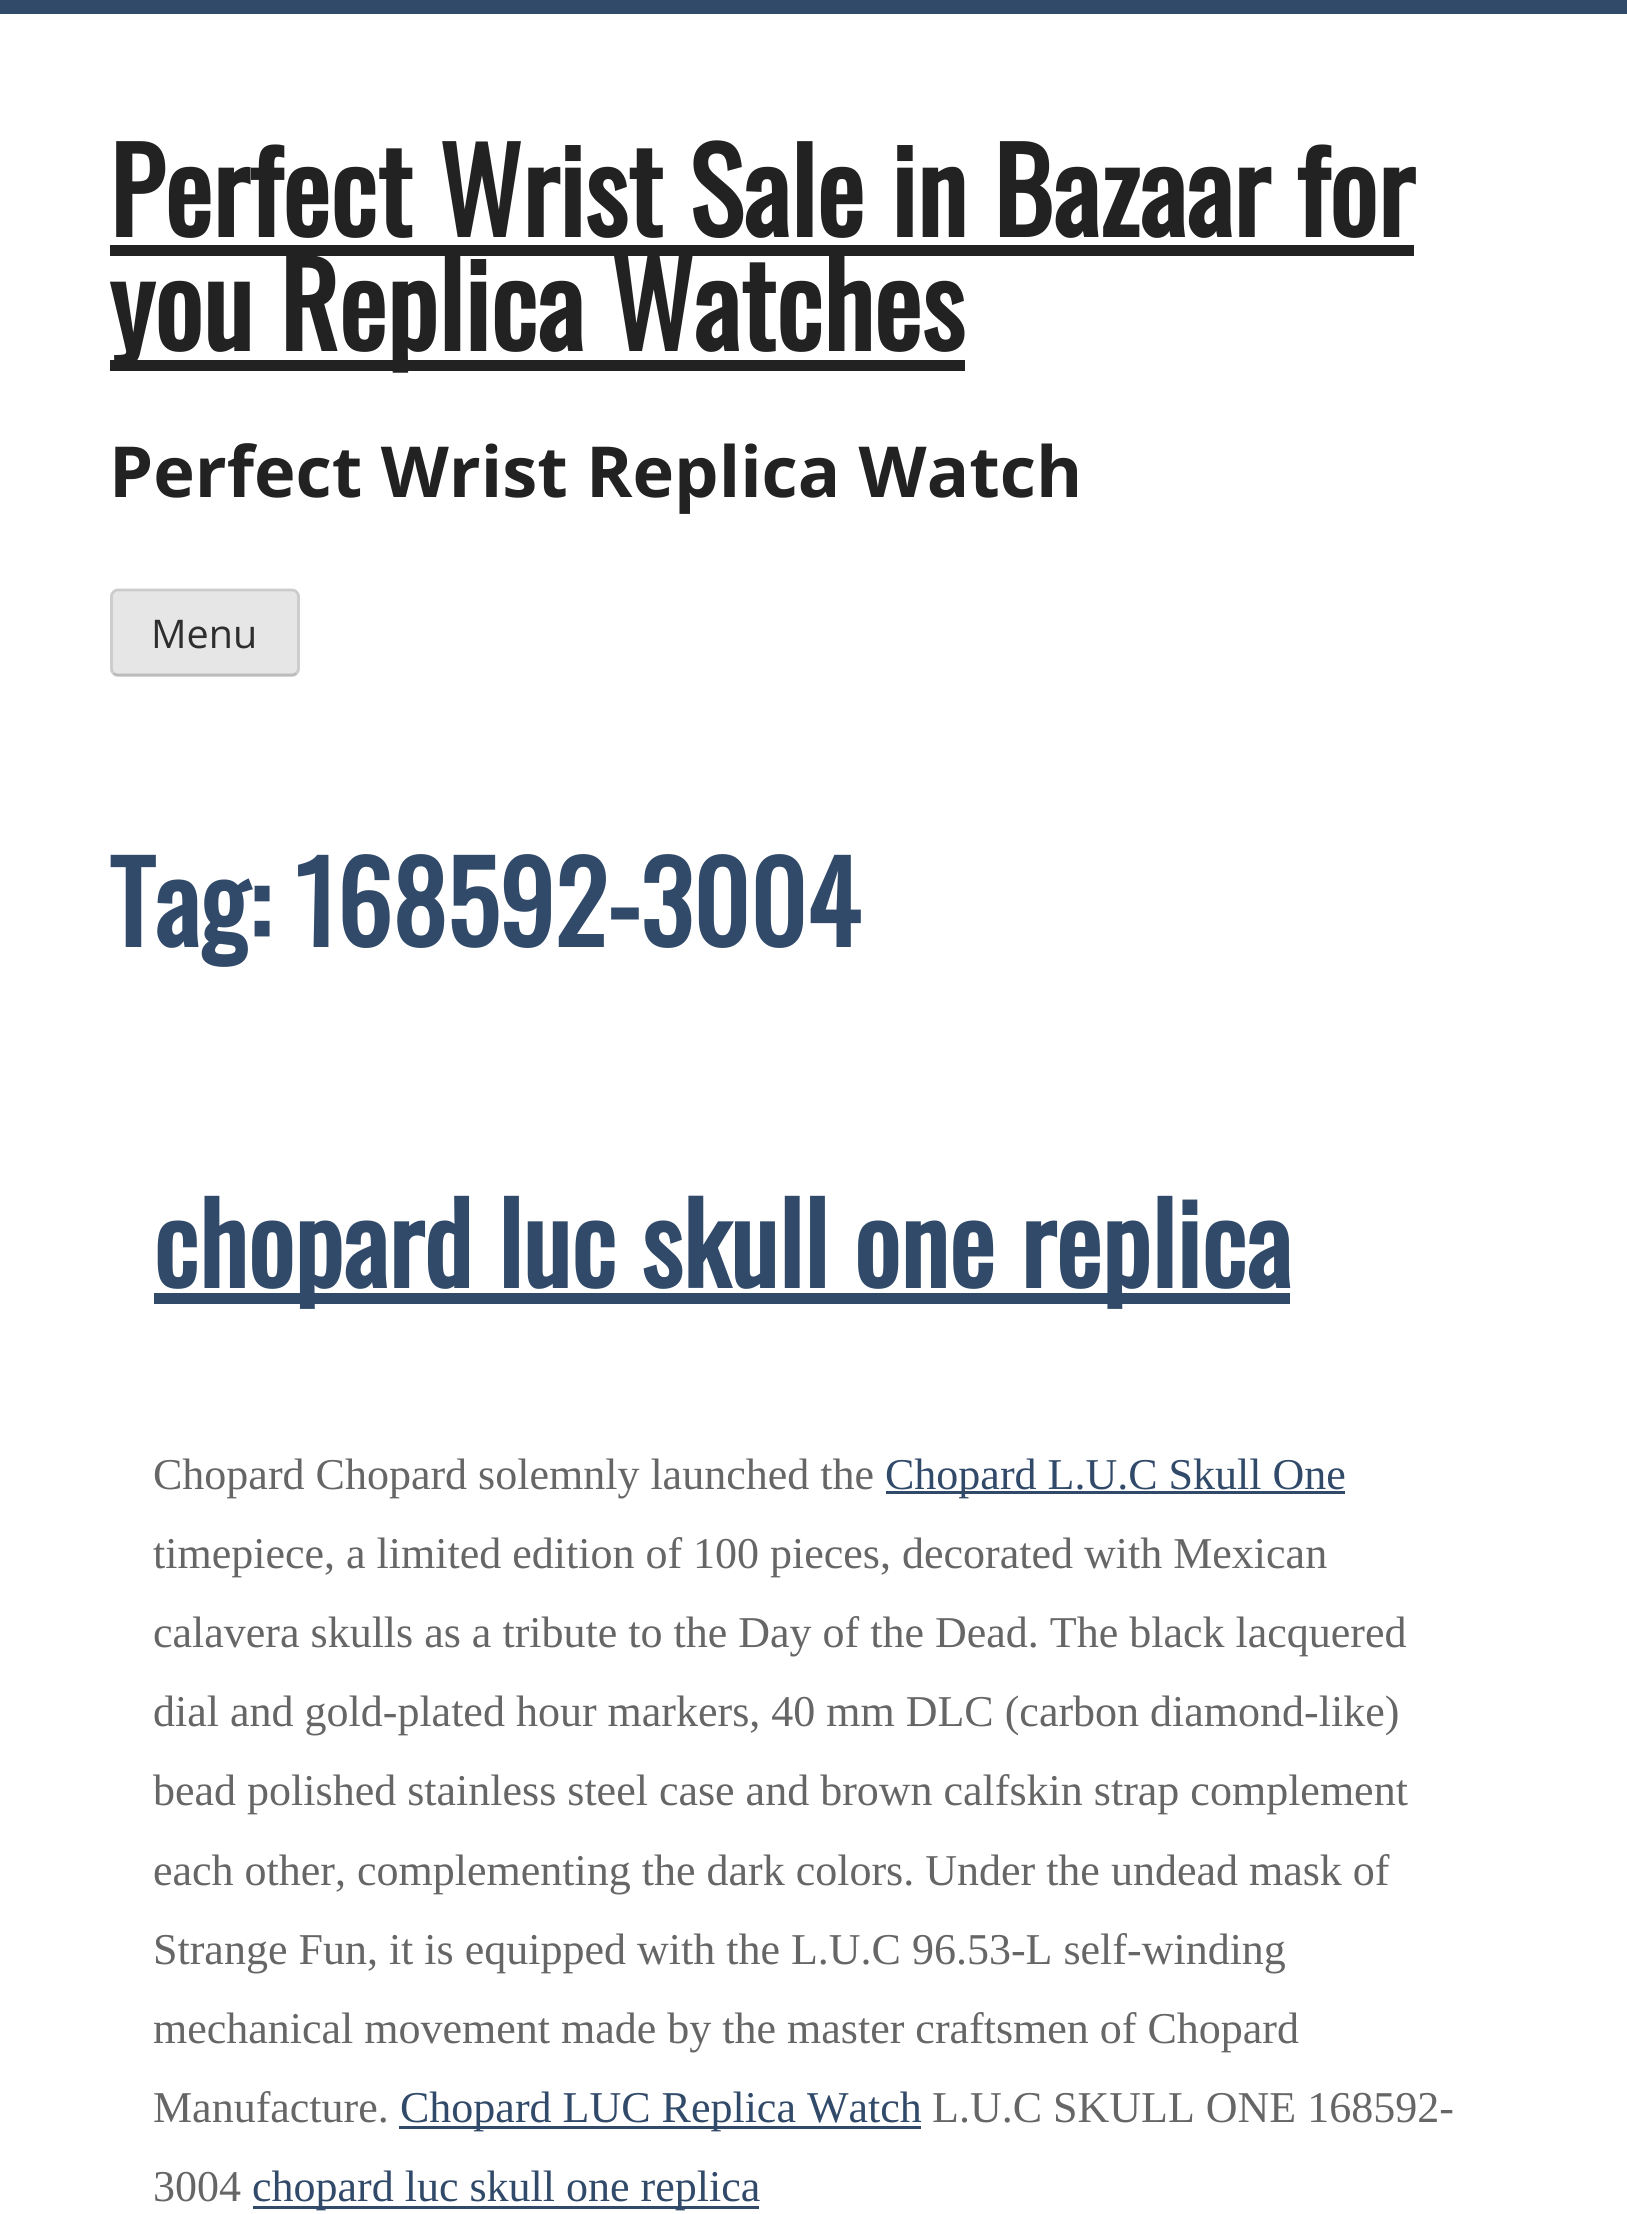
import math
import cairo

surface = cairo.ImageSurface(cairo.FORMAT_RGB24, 1627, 2214)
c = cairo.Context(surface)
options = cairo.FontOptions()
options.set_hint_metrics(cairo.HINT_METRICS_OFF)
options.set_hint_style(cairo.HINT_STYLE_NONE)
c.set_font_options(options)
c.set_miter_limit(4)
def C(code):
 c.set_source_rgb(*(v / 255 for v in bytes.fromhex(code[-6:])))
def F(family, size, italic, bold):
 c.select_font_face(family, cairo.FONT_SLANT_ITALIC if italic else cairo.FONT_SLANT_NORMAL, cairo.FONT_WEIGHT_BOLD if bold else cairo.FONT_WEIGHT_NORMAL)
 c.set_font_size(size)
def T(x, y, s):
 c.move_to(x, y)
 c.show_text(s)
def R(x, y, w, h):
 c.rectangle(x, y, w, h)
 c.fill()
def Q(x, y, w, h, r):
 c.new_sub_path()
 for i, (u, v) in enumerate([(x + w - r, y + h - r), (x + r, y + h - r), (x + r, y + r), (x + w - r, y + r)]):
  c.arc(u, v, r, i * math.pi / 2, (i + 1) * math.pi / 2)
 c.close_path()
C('ffffff')
c.paint()
C('314a69')
R(0,0,1627,14)
F('Oswald',114.4,0,1)
C('222222')
T(109,237,'Perfect Wrist Sale in Bazaar for')
R(110,245,1304,11)
R(110,360,855,11)
T(109,351,'you Replica Watches')
F('Open Sans',70.4,0,1)
T(109,497,'Perfect Wrist Replica Watch')
C('e6e6e6')
Q(110,589,190,88,8)
c.fill()
c.new_path()
c.move_to(296.5,673)
c.curve_to(295,674.5,293.5,675,291.5,675)
c.line_to(118,675)
c.curve_to(116.5,675,114.5,674.5,113.5,673)
C('bbbbbb')
c.set_line_width(2.8)
c.stroke()
c.new_path()
c.move_to(113.5,673)
c.curve_to(112,672,111.5,670,111.5,668)
c.line_to(111.5,597)
c.curve_to(111.5,595,112,593,113.5,592)
c.curve_to(114.5,590.5,116.5,590,118,590)
c.line_to(291.5,590)
c.curve_to(293.5,590,295,590.5,296.5,592)
c.curve_to(297.5,593,298.5,595,298.5,597)
c.line_to(298.5,668)
c.curve_to(298.5,670,297.5,672,296.5,673)
C('cccccc')
c.stroke()
F('Open Sans',39.5,0,0)
C('2e2e2e')
T(151,648,'Menu')
F('Oswald',110,0,1)
C('314a69')
T(109,947,'Tag: 168592-3004')
R(154,1293,1136,11)
T(153,1288,'chopard luc skull one replica')
F('Liberation Serif',44,0,0)
C('666666')
T(153,1489,'Chopard Chopard solemnly launched the')
C('314a69')
R(886,1491,459,3)
T(885,1489,'Chopard L.U.C Skull One')
C('666666')
T(153,1568,'timepiece, a limited edition of 100 pieces, decorated with Mexican')
T(153,1647,'calavera skulls as a tribute to the Day of the Dead. The black lacquered')
T(153,1726,'dial and gold-plated hour markers, 40 mm DLC (carbon diamond-like)')
T(153,1805,'bead polished stainless steel case and brown calfskin strap complement')
T(153,1885,'each other, complementing the dark colors. Under the undead mask of')
T(153,1964,'Strange Fun, it is equipped with the L.U.C 96.53-L self-winding')
T(153,2043,'mechanical movement made by the master craftsmen of Chopard')
T(153,2122,'Manufacture.')
C('314a69')
R(399,2126,522,3)
T(400,2122,'Chopard LUC Replica Watch')
C('666666')
T(932,2122,'L.U.C SKULL ONE 168592-')
T(153,2201,'3004')
C('314a69')
R(253,2206,506,3)
T(252,2201,'chopard luc skull one replica')
surface.write_to_png('o.png')
